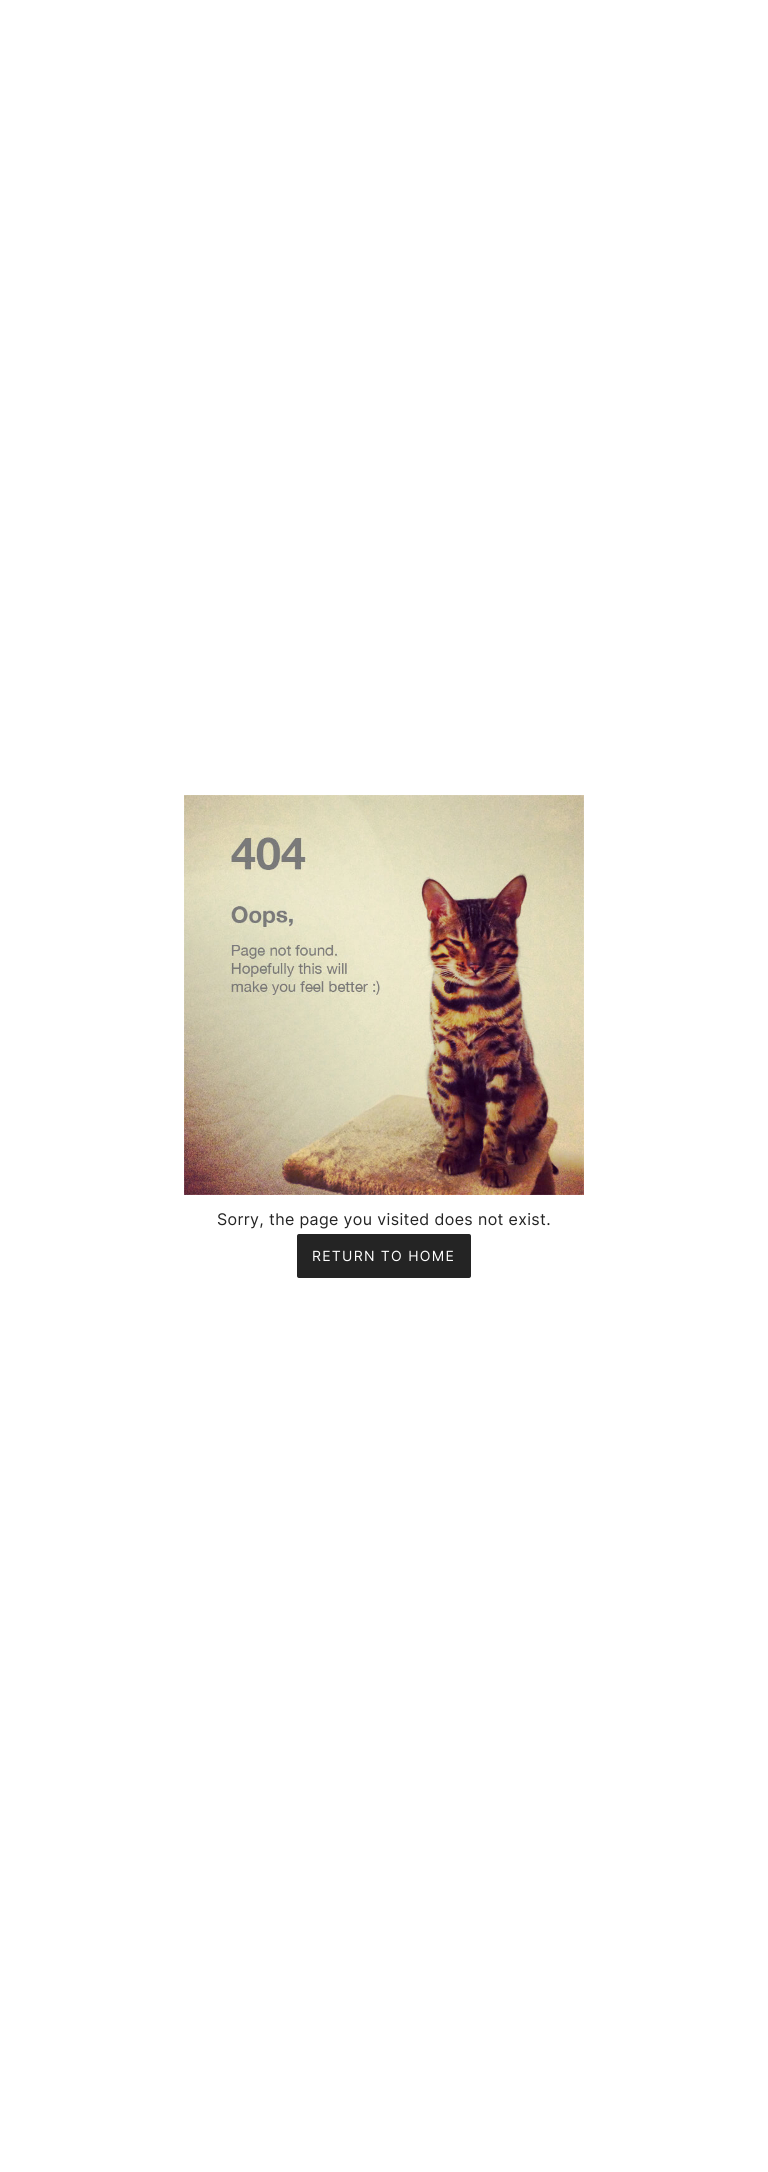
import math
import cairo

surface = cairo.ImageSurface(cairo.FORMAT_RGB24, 768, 2172)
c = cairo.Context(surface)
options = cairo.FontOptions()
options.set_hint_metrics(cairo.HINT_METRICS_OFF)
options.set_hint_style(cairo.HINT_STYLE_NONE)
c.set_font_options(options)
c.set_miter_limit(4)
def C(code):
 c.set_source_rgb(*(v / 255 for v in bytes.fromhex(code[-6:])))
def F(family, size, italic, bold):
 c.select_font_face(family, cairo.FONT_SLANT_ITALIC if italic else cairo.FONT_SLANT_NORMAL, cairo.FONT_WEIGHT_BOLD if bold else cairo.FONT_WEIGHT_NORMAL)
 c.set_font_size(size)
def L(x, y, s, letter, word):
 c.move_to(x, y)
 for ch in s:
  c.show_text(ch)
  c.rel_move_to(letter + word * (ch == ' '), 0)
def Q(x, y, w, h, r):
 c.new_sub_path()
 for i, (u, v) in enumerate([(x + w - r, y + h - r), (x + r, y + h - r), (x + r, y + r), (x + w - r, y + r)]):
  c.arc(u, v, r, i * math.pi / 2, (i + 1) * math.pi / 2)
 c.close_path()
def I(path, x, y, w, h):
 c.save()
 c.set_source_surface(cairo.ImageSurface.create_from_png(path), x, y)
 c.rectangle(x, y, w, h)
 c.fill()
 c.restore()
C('ffffff')
c.paint()
I('1.png',184,795,400,400)
F('Inter',16,0,0)
C('242424')
L(217,1225,'Sorry, the page you visited does not exist.',.35,0)
Q(297,1234,174,44,2)
c.fill()
F('Inter',14,0,0)
C('ffffff')
L(312,1261,'RETURN TO HOME',1.25,0)
surface.write_to_png('o.png')
